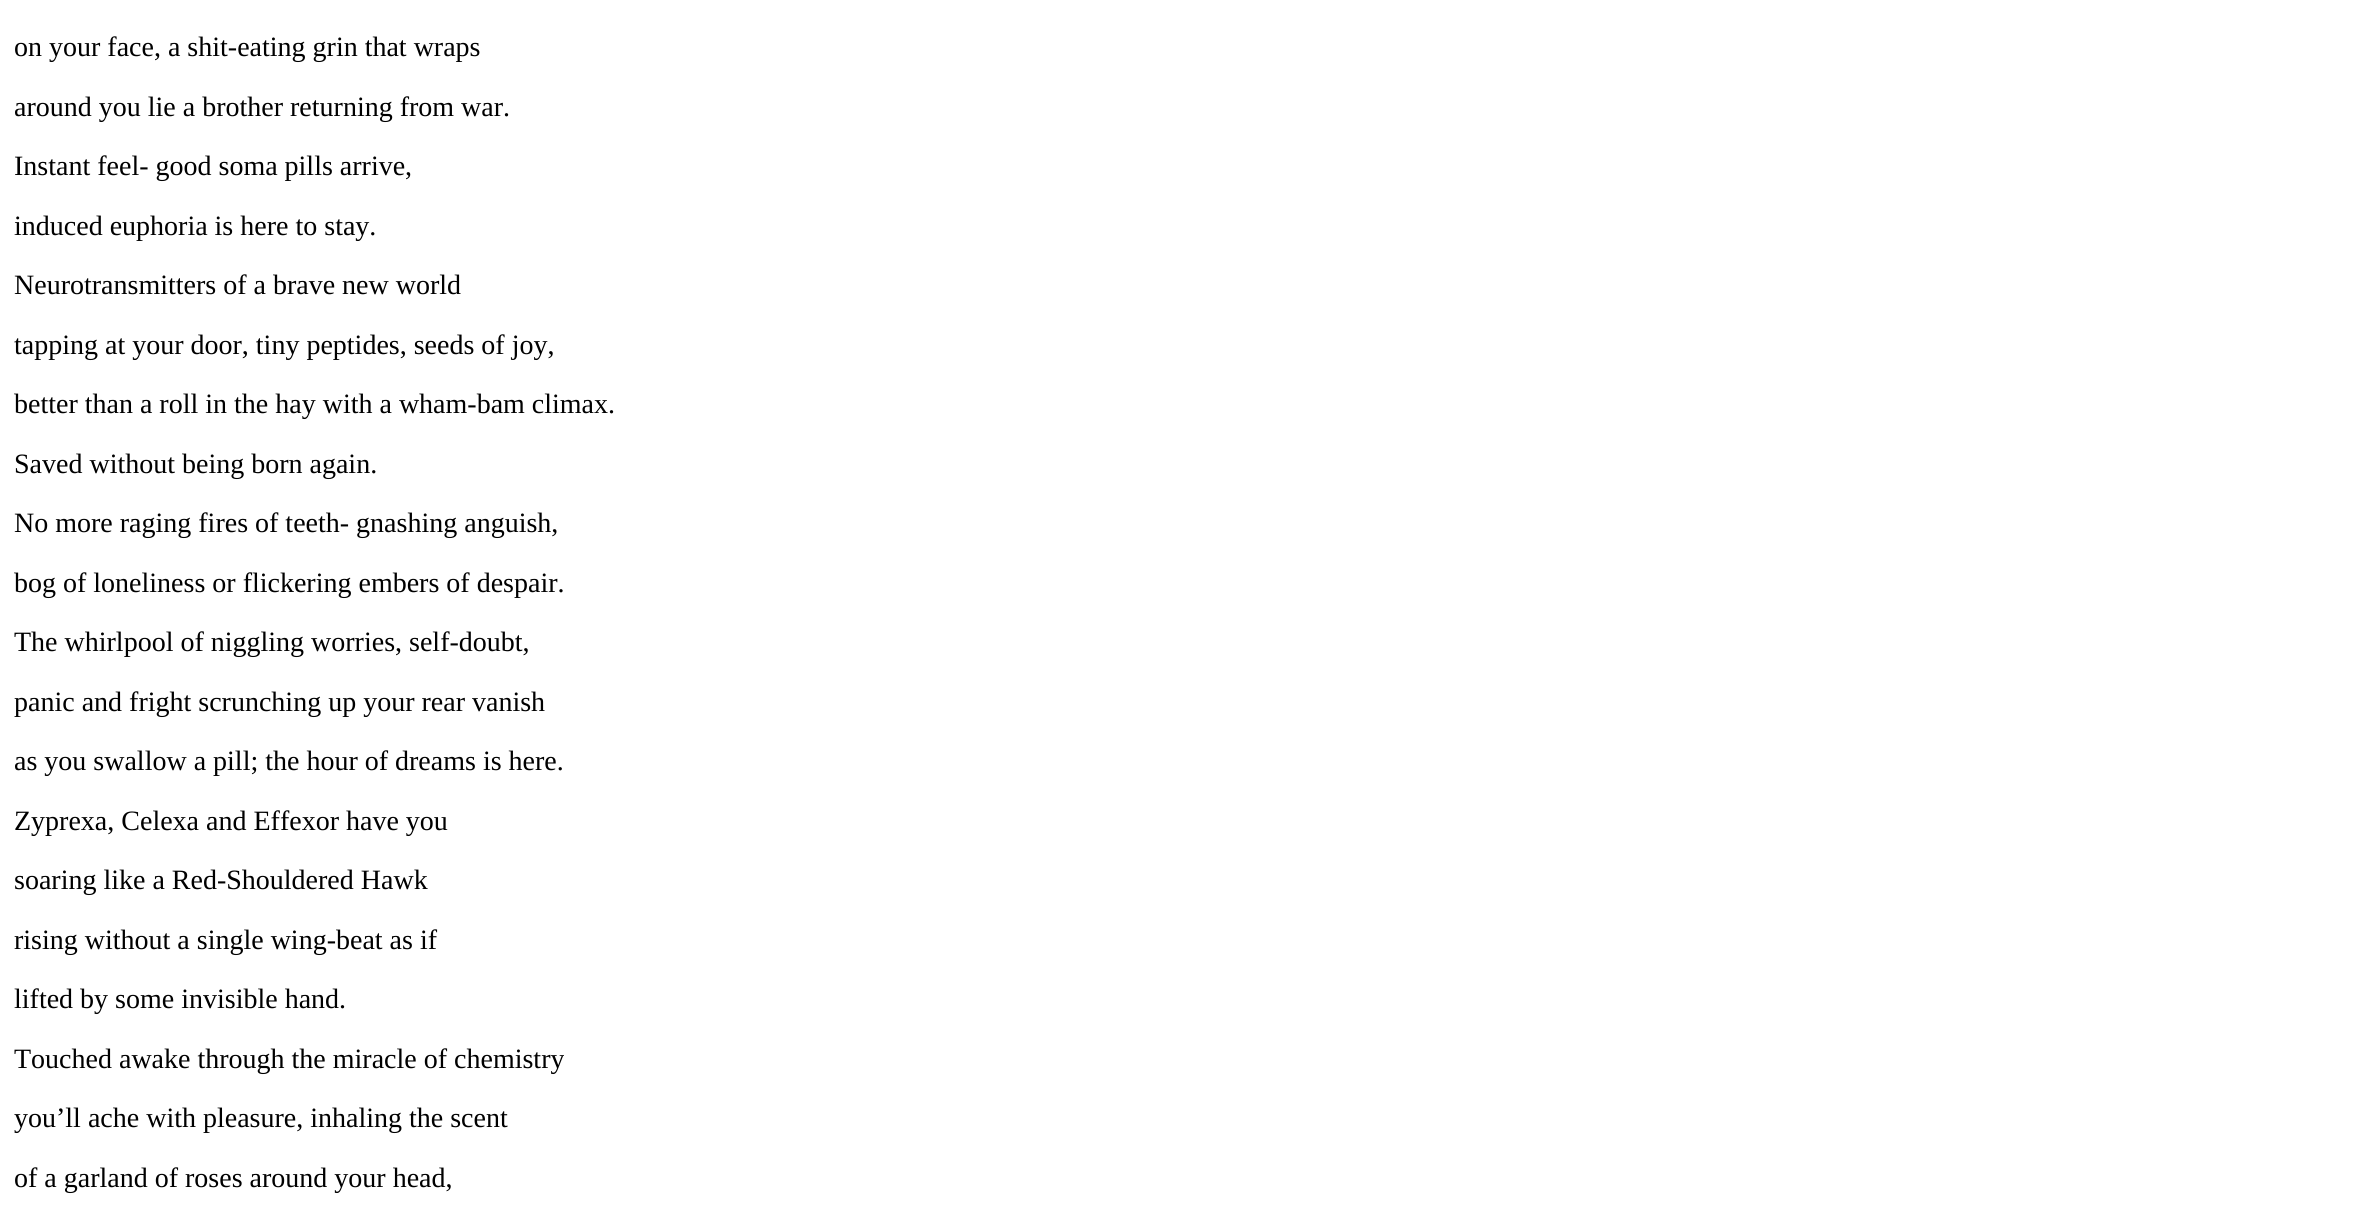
import math
import cairo

surface = cairo.ImageSurface(cairo.FORMAT_RGB24, 2356, 1222)
c = cairo.Context(surface)
options = cairo.FontOptions()
options.set_hint_metrics(cairo.HINT_METRICS_OFF)
options.set_hint_style(cairo.HINT_STYLE_NONE)
c.set_font_options(options)
c.set_miter_limit(4)
def C(code):
 c.set_source_rgb(*(v / 255 for v in bytes.fromhex(code[-6:])))
def F(family, size, italic, bold):
 c.select_font_face(family, cairo.FONT_SLANT_ITALIC if italic else cairo.FONT_SLANT_NORMAL, cairo.FONT_WEIGHT_BOLD if bold else cairo.FONT_WEIGHT_NORMAL)
 c.set_font_size(size)
def T(x, y, s):
 c.move_to(x, y)
 c.show_text(s)
C('ffffff')
c.paint()
F('Liberation Serif',28,0,0)
C('000000')
T(14,56,'on your face, a shit-eating grin that wraps')
T(14,116,'around you lie a brother returning from war.')
T(14,175,'Instant feel- good soma pills arrive,')
T(14,235,'induced euphoria is here to stay.')
T(14,294,'Neurotransmitters of a brave new world')
T(14,354,'tapping at your door, tiny peptides, seeds of joy,')
T(14,413,'better than a roll in the hay with a wham-bam climax.')
T(14,473,'Saved without being born again.')
T(14,532,'No more raging fires of teeth- gnashing anguish,')
T(14,592,'bog of loneliness or flickering embers of despair.')
T(14,651,'The whirlpool of niggling worries, self-doubt,')
T(14,711,'panic and fright scrunching up your rear vanish')
T(14,770,'as you swallow a pill; the hour of dreams is here.')
T(14,830,'Zyprexa, Celexa and Effexor have you')
T(14,889,'soaring like a Red-Shouldered Hawk')
T(14,949,'rising without a single wing-beat as if')
T(14,1008,'lifted by some invisible hand.')
T(14,1068,'Touched awake through the miracle of chemistry')
T(14,1127,'you’ll ache with pleasure, inhaling the scent')
T(14,1187,'of a garland of roses around your head,')
surface.write_to_png('o.png')
